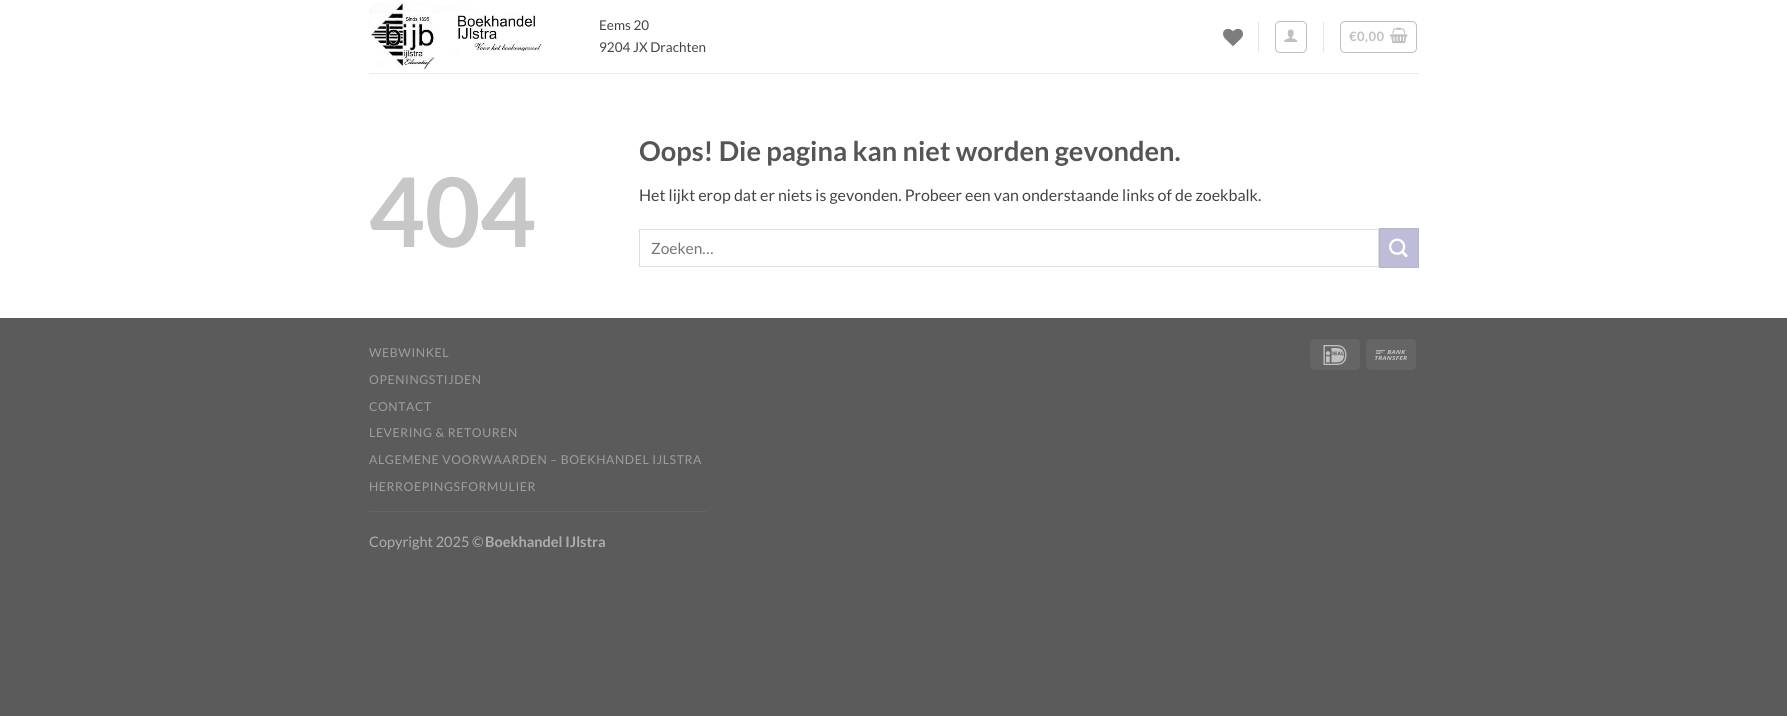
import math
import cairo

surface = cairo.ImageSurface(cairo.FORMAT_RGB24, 1787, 716)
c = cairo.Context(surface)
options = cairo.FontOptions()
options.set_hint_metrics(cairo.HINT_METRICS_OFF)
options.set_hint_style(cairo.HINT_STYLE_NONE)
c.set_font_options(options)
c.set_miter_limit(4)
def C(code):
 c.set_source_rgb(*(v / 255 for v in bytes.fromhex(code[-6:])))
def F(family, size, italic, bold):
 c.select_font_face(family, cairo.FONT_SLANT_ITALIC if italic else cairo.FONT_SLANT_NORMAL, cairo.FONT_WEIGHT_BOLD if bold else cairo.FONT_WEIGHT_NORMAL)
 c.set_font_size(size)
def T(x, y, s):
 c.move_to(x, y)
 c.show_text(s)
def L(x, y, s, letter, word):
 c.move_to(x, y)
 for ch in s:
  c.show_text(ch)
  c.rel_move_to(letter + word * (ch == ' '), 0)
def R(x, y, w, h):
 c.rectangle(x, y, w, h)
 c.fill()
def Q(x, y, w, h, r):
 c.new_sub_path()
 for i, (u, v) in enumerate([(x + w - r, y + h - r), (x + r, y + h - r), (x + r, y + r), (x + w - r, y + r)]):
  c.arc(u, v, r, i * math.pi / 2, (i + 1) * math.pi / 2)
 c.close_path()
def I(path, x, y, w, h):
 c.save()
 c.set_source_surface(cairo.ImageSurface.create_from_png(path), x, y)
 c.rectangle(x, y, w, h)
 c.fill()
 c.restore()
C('5b5b5b')
c.paint()
C('ffffff')
R(0,0,1787,318)
I('1.png',369,2,175,67)
F('Lato',13.5,0,0)
C('444444')
T(599,30,'Eems 20')
T(599,52,'9204 JX Drachten')
I('2.png',1223,28,20,18)
C('e6e6e6')
R(1258,22,1,30)
Q(1275.5,21.5,31,31,4.5)
C('c0c0c0')
c.set_line_width(1)
c.stroke()
I('3.png',1284,29,14,13)
C('e6e6e6')
R(1323,22,1,30)
Q(1340.5,21.5,76,31,4.5)
C('c0c0c0')
c.stroke()
F('Lato',13,0,1)
L(1349,41,'€0,00',.5,0)
I('4.png',1390,27,18,17)
C('ececec')
R(369,73,1050,1)
F('Lato',96,0,1)
C('c7c7c7')
T(369,247,'404')
F('Lato',27.25,0,1)
C('555555')
T(639,161,'Oops! Die pagina kan niet worden gevonden.')
F('Lato',16,0,0)
C('444444')
T(639,201,'Het lijkt erop dat er niets is gevonden. Probeer een van onderstaande links of de zoekbalk.')
c.rectangle(639.5,229.5,739,37)
C('dddddd')
c.stroke()
F('Lato',15.5,0,0)
C('757575')
T(651,254,'Zoeken…')
C('bdbdda')
c.rectangle(1379.5,228.5,39,39)
c.fill_preserve()
C('b4b4cf')
c.stroke()
I('5.png',1389,238,19,20)
C('656565')
R(369,511,337,1)
F('Lato',12.25,0,0)
C('9d9d9d')
L(369,357,'WEBWINKEL',.6,0)
L(369,384,'OPENINGSTIJDEN',.6,0)
L(369,411,'CONTACT',.6,0)
L(369,437,'LEVERING & RETOUREN',.6,0)
L(369,464,'ALGEMENE VOORWAARDEN – BOEKHANDEL IJLSTRA',.6,0)
L(369,491,'HERROEPINGSFORMULIER',.6,0)
F('Lato',14.5,0,0)
C('adadad')
T(369,547,'Copyright 2025 ©')
F('Lato',14.5,0,1)
T(485,547,'Boekhandel IJlstra')
C('656565')
Q(1310,339,50,31,5)
c.fill()
I('6.png',1323,345,24,20)
Q(1366,339,50,31,5)
c.fill()
I('7.png',1375,350,32,10)
surface.write_to_png('o.png')
